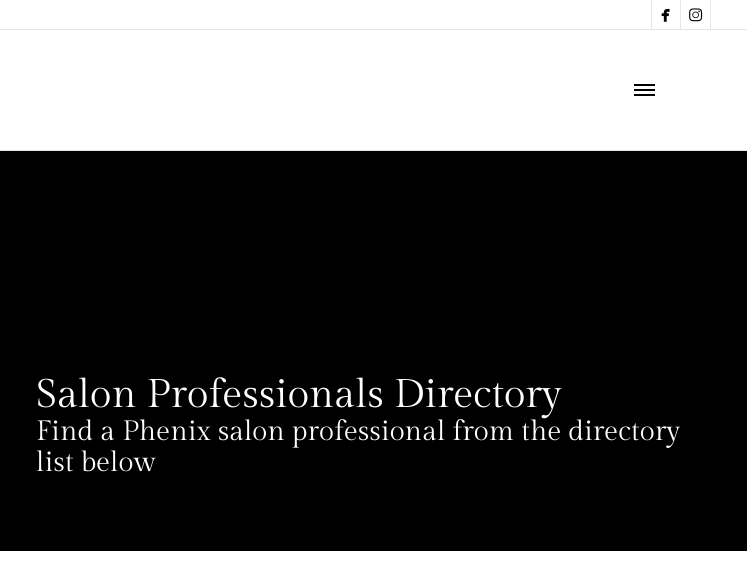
import math
import cairo

surface = cairo.ImageSurface(cairo.FORMAT_RGB24, 747, 575)
c = cairo.Context(surface)
options = cairo.FontOptions()
options.set_hint_metrics(cairo.HINT_METRICS_OFF)
options.set_hint_style(cairo.HINT_STYLE_NONE)
c.set_font_options(options)
c.set_miter_limit(4)
def C(code):
 c.set_source_rgb(*(v / 255 for v in bytes.fromhex(code[-6:])))
def F(family, size, italic, bold):
 c.select_font_face(family, cairo.FONT_SLANT_ITALIC if italic else cairo.FONT_SLANT_NORMAL, cairo.FONT_WEIGHT_BOLD if bold else cairo.FONT_WEIGHT_NORMAL)
 c.set_font_size(size)
def T(x, y, s):
 c.move_to(x, y)
 c.show_text(s)
def R(x, y, w, h):
 c.rectangle(x, y, w, h)
 c.fill()
def I(path, x, y, w, h):
 c.save()
 c.set_source_surface(cairo.ImageSurface.create_from_png(path), x, y)
 c.rectangle(x, y, w, h)
 c.fill()
 c.restore()
C('ffffff')
c.paint()
C('e6e6e6')
R(0,150,747,1)
R(0,29,747,1)
R(680,0,1,29)
R(651,0,1,29)
I('1.png',661,8,9,14)
R(710,0,1,29)
I('2.png',689,8,14,14)
C('000000')
R(634,89,21,2)
R(634,84,21,2)
R(634,94,21,2)
R(0,151,747,400)
F('Gilda Display',40,0,0)
C('ffffff')
T(36,407,'Salon Professionals Directory')
F('Gilda Display',28,0,0)
T(36,440,'Find a Phenix salon professional from the directory')
T(36,471,'list below')
surface.write_to_png('o.png')
